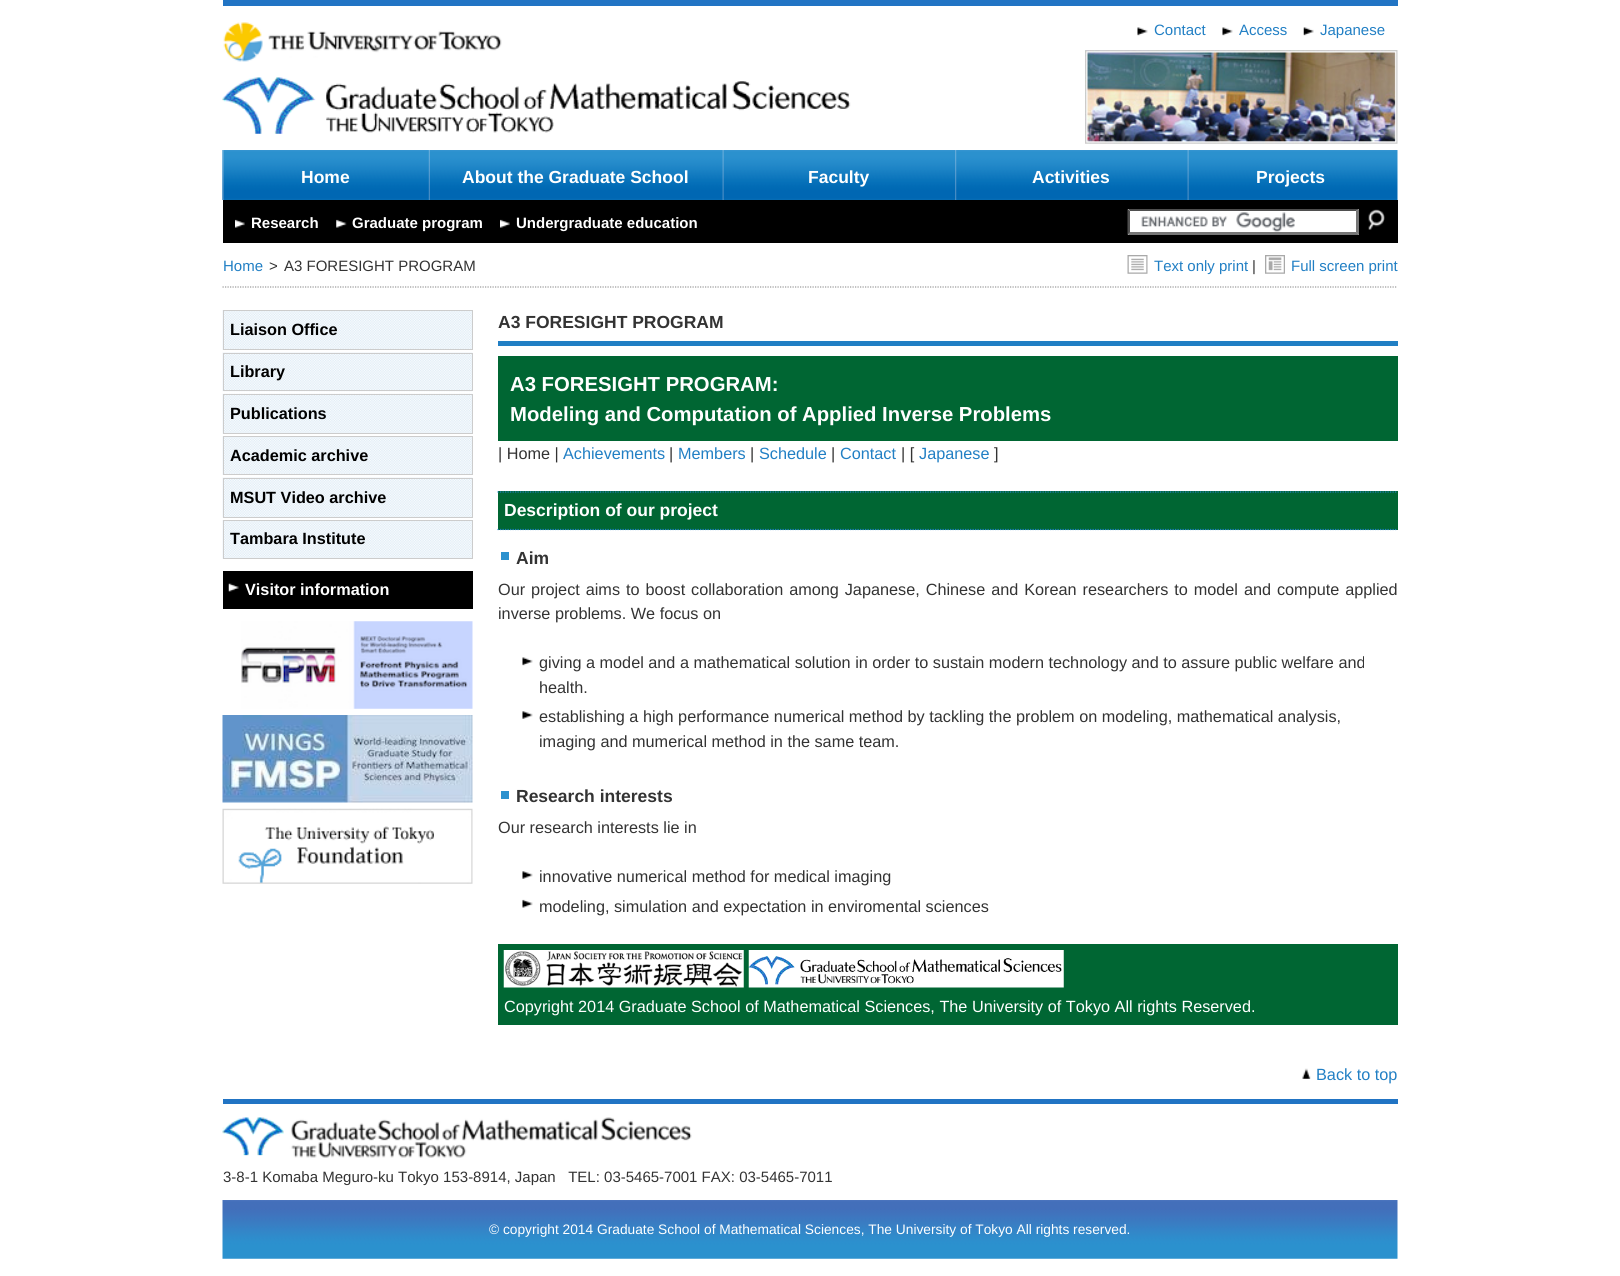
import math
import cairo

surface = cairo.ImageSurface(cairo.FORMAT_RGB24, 1620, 1276)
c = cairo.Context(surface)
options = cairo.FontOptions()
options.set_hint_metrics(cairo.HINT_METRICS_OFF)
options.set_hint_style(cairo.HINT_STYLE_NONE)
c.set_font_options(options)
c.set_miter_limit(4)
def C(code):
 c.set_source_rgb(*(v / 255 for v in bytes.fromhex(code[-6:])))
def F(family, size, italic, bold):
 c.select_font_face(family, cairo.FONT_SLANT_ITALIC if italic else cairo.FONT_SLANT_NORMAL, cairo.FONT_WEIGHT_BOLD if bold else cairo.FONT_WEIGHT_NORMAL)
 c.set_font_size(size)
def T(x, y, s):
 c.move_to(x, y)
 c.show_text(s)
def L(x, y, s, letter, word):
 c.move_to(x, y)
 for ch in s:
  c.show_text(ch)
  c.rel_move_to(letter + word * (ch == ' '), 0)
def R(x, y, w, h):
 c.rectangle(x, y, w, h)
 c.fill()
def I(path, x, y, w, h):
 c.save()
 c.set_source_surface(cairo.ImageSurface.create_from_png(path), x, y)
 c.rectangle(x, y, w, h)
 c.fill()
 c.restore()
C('ffffff')
c.paint()
C('2174c4')
R(223,0,1175,6)
I('1.png',223,22,279,40)
I('2.png',222,77,629,57)
I('3.png',1137,27,11,9)
F('Liberation Sans',15,0,0)
C('217fc4')
T(1154,35,'Contact')
I('4.png',1222,27,11,9)
T(1239,35,'Access')
I('5.png',1303,27,11,9)
T(1320,35,'Japanese')
I('6.png',1085,50,313,94)
I('7.png',222,150,1176,50)
I('8.png',222,150,2,50)
F('Liberation Sans',17.5,0,1)
C('ffffff')
T(301,183,'Home')
I('9.png',428,150,2,50)
T(462,183,'About the Graduate School')
I('10.png',722,150,2,50)
T(808,183,'Faculty')
I('11.png',955,150,2,50)
T(1032,183,'Activities')
I('10.png',1187,150,2,50)
T(1256,183,'Projects')
C('000000')
R(223,200,1175,43)
I('12.png',235,219,10,9)
F('Liberation Sans',15,0,1)
C('ffffff')
T(251,228,'Research')
I('13.png',336,219,11,9)
T(352,228,'Graduate program')
I('14.png',500,219,10,9)
T(516,228,'Undergraduate education')
R(1128,209,231,26)
I('15.png',1141,212,154,20)
C('4f4f4f')
c.new_path()
c.move_to(1128,209)
c.line_to(1359,209)
c.line_to(1356,211)
c.line_to(1130,211)
c.close_path()
c.fill()
C('767676')
c.new_path()
c.move_to(1359,209)
c.line_to(1359,235)
c.line_to(1356,232.5)
c.line_to(1356,211)
c.close_path()
c.fill()
c.new_path()
c.move_to(1359,235)
c.line_to(1128,235)
c.line_to(1130,232)
c.line_to(1356,232)
c.close_path()
c.fill()
C('4f4f4f')
c.new_path()
c.move_to(1127.5,235)
c.line_to(1127.5,209)
c.line_to(1130,211)
c.line_to(1130,232.5)
c.close_path()
c.fill()
I('16.png',1368,209,17,21)
c.new_path()
c.move_to(222.5,287)
c.line_to(1397.5,287)
C('999999')
c.set_line_width(1.2)
c.set_dash([1.25,1.25])
c.stroke()
F('Liberation Sans',15,0,0)
C('217fc4')
T(223,271,'Home')
C('333333')
T(269,271,'>')
T(284,271,'A3 FORESIGHT PROGRAM')
I('17.png',1127,255,21,19)
C('217fc4')
T(1154,271,'Text only print')
C('333333')
T(1252,271,'|')
I('18.png',1265,255,20,19)
C('217fc4')
T(1291,271,'Full screen print')
I('19.png',222,310,250,40)
c.rectangle(223.5,310.5,249,39)
C('cccccc')
c.set_line_width(1)
c.set_dash([])
c.stroke()
F('Liberation Sans',16.25,0,1)
C('000000')
T(230,335,'Liaison Office')
I('20.png',222,352,251,40)
c.rectangle(223.5,353.5,249,37)
C('cccccc')
c.stroke()
C('000000')
T(230,377,'Library')
I('21.png',222,393,251,41)
c.rectangle(223.5,394.5,249,39)
C('cccccc')
c.stroke()
C('000000')
T(230,419,'Publications')
I('22.png',222,436,250,39)
c.rectangle(223.5,436.5,249,38)
C('cccccc')
c.stroke()
C('000000')
T(230,461,'Academic archive')
I('23.png',222,477,251,41)
c.rectangle(223.5,478.5,249,39)
C('cccccc')
c.stroke()
C('000000')
T(230,503,'MSUT Video archive')
I('24.png',222,520,250,39)
c.rectangle(223.5,520.5,249,38)
C('cccccc')
c.stroke()
C('000000')
T(230,544,'Tambara Institute')
R(223,571,250,38)
I('25.png',228,583,11,9)
C('ffffff')
T(245,595,'Visitor information')
I('26.png',241,621,232,88)
I('27.png',222,715,251,88)
I('28.png',222,808,251,76)
C('217fc4')
R(498,341,900,5)
F('Liberation Sans',17.5,0,1)
C('333333')
T(498,328,'A3 FORESIGHT PROGRAM')
C('006633')
R(498,356,900,85)
F('Liberation Sans',20.3,0,1)
C('ffffff')
T(510,391,'A3 FORESIGHT PROGRAM:')
T(510,421,'Modeling and Computation of Applied Inverse Problems')
F('Liberation Sans',16.25,0,0)
C('333333')
T(498,459,'| Home |')
C('217fc4')
T(563,459,'Achievements')
C('333333')
T(669,459,'|')
C('217fc4')
T(678,459,'Members')
C('333333')
T(750,459,'|')
C('217fc4')
T(759,459,'Schedule')
C('333333')
T(831,459,'|')
C('217fc4')
T(840,459,'Contact')
C('333333')
T(901,459,'| [')
C('217fc4')
T(919,459,'Japanese')
C('333333')
T(994,459,']')
C('006633')
R(498,491,900,39)
c.new_path()
c.move_to(497.5,492)
c.line_to(1397.5,492)
C('217fc4')
c.set_line_width(1.2)
c.set_dash([1.25,1.25])
c.stroke()
c.new_path()
c.move_to(497.5,529.5)
c.line_to(1397.5,529.5)
c.stroke()
F('Liberation Sans',17.5,0,1)
C('ffffff')
T(504,516,'Description of our project')
C('2b91ce')
R(501,552,8,8)
C('333333')
T(516,564,'Aim')
F('Liberation Sans',16.25,0,0)
L(498,595,'Our project aims to boost collaboration among Japanese, Chinese and Korean researchers to model and compute applied',0,1.4)
T(498,619,'inverse problems. We focus on')
I('4.png',522,657,11,9)
T(539,668,'giving a model and a mathematical solution in order to sustain modern technology and to assure public welfare and')
T(539,693,'health.')
I('29.png',522,711,11,8)
T(539,722,'establishing a high performance numerical method by tackling the problem on modeling, mathematical analysis,')
T(539,747,'imaging and mumerical method in the same team.')
C('2b91ce')
R(501,791,8,8)
F('Liberation Sans',17.5,0,1)
C('333333')
T(516,802,'Research interests')
F('Liberation Sans',16.25,0,0)
T(498,833,'Our research interests lie in')
I('29.png',522,871,11,8)
T(539,882,'innovative numerical method for medical imaging')
I('30.png',522,899,11,9)
T(539,912,'modeling, simulation and expectation in enviromental sciences')
C('006633')
R(498,944,900,81)
I('31.png',503,950,241,38)
I('32.png',748,950,316,38)
C('ffffff')
T(504,1012,'Copyright 2014 Graduate School of Mathematical Sciences, The University of Tokyo All rights Reserved.')
I('33.png',1302,1068,9,11)
C('217fc4')
T(1316,1080,'Back to top')
C('2174c4')
R(223,1099,1175,5)
I('34.png',222,1117,470,41)
F('Liberation Sans',15,0,0)
C('333333')
T(223,1182,'3-8-1 Komaba Meguro-ku Tokyo 153-8914, Japan   TEL: 03-5465-7001 FAX: 03-5465-7011')
I('35.png',222,1200,1176,59)
F('Liberation Sans',13.75,0,0)
C('ffffff')
T(489,1234,'© copyright 2014 Graduate School of Mathematical Sciences, The University of Tokyo All rights reserved.')
surface.write_to_png('o.png')
